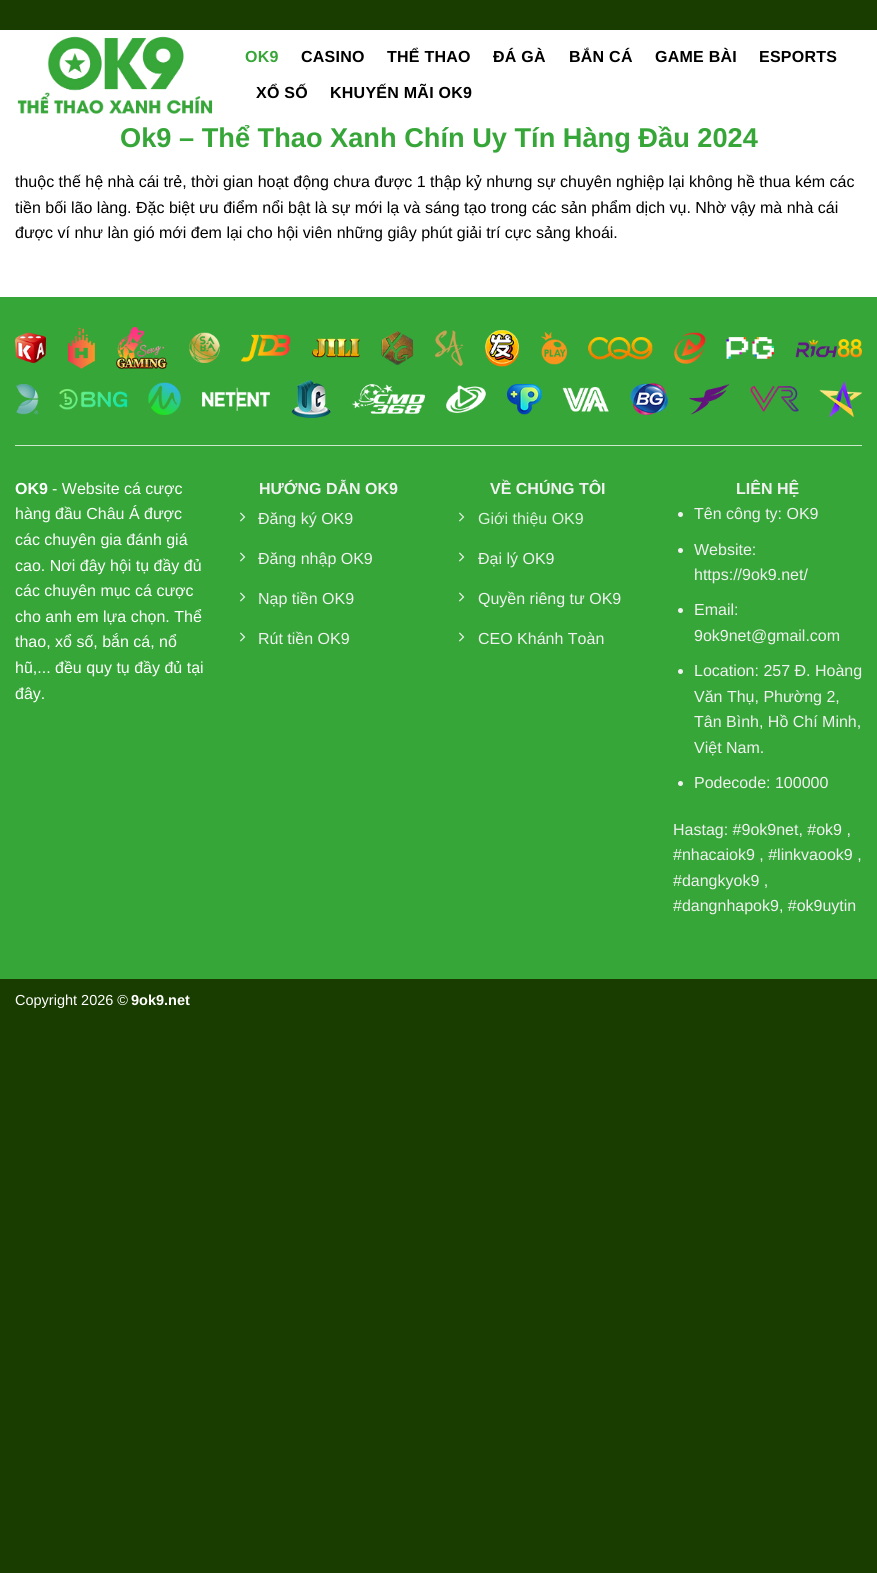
import math
import cairo

surface = cairo.ImageSurface(cairo.FORMAT_RGB24, 877, 1573)
c = cairo.Context(surface)
options = cairo.FontOptions()
options.set_hint_metrics(cairo.HINT_METRICS_OFF)
options.set_hint_style(cairo.HINT_STYLE_NONE)
c.set_font_options(options)
c.set_miter_limit(4)
def C(code):
 c.set_source_rgb(*(v / 255 for v in bytes.fromhex(code[-6:])))
def F(family, size, italic, bold):
 c.select_font_face(family, cairo.FONT_SLANT_ITALIC if italic else cairo.FONT_SLANT_NORMAL, cairo.FONT_WEIGHT_BOLD if bold else cairo.FONT_WEIGHT_NORMAL)
 c.set_font_size(size)
def T(x, y, s):
 c.move_to(x, y)
 c.show_text(s)
def L(x, y, s, letter, word):
 c.move_to(x, y)
 for ch in s:
  c.show_text(ch)
  c.rel_move_to(letter + word * (ch == ' '), 0)
def R(x, y, w, h):
 c.rectangle(x, y, w, h)
 c.fill()
def I(path, x, y, w, h):
 c.save()
 c.set_source_surface(cairo.ImageSurface.create_from_png(path), x, y)
 c.rectangle(x, y, w, h)
 c.fill()
 c.restore()
C('193d00')
c.paint()
C('ffffff')
R(0,30,877,267)
I('1.png',17,36,196,78)
F('Liberation Sans',16,0,1)
C('36a638')
L(245,62,'OK9',.25,0)
C('000000')
L(301,62,'CASINO',.25,0)
L(387,62,'THỂ THAO',.25,0)
L(493,62,'ĐÁ GÀ',.25,0)
L(569,62,'BẮN CÁ',.25,0)
L(655,62,'GAME BÀI',.25,0)
L(759,62,'ESPORTS',.25,0)
L(256,98,'XỔ SỐ',.25,0)
L(330,98,'KHUYẾN MÃI OK9',.25,0)
F('Liberation Sans',27.2,0,1)
C('36a638')
T(120,147,'Ok9 – Thể Thao Xanh Chín Uy Tín Hàng Đầu 2024')
F('Liberation Sans',16,0,0)
C('000000')
T(15,187,'thuộc thế hệ nhà cái trẻ, thời gian hoạt động chưa được 1 thập kỷ nhưng sự chuyên nghiệp lại không hề thua kém các')
T(15,213,'tiền bối lão làng. Đặc biệt ưu điểm nổi bật là sự mới lạ và sáng tạo trong các sản phẩm dịch vụ. Nhờ vậy mà nhà cái')
T(15,238,'được ví như làn gió mới đem lại cho hội viên những giây phút giải trí cực sảng khoái.')
C('36a638')
R(0,297,877,682)
I('2.png',15,327,847,119)
F('Liberation Sans',16,0,1)
C('ffffff')
T(15,494,'OK9')
F('Liberation Sans',16,0,0)
T(52,494,'- Website cá cược')
T(15,519,'hàng đầu Châu Á được')
T(15,545,'các chuyên gia đánh giá')
T(15,571,'cao. Nơi đây hội tụ đầy đủ')
T(15,596,'các chuyên mục cá cược')
T(15,622,'cho anh em lựa chọn. Thể')
T(15,647,'thao, xổ số, bắn cá, nổ')
T(15,673,'hũ,... đều quy tụ đầy đủ tại')
T(15,699,'đây.')
F('Liberation Sans',16,0,1)
C('f1f1f1')
T(259,494,'HƯỚNG DẪN OK9')
I('3.png',240,512,6,10)
F('Liberation Sans',16,0,0)
T(258,524,'Đăng ký OK9')
I('3.png',240,552,6,10)
T(258,564,'Đăng nhập OK9')
I('3.png',240,592,6,10)
T(258,604,'Nạp tiền OK9')
I('3.png',240,632,6,10)
T(258,644,'Rút tiền OK9')
F('Liberation Sans',16,0,1)
T(490,494,'VỀ CHÚNG TÔI')
I('4.png',459,512,6,10)
F('Liberation Sans',16,0,0)
C('e1f2e1')
T(478,524,'Giới thiệu OK9')
I('3.png',459,552,6,10)
C('f1f1f1')
T(478,564,'Đại lý OK9')
I('3.png',459,592,6,10)
T(478,604,'Quyền riêng tư OK9')
I('3.png',459,632,6,10)
T(478,644,'CEO Khánh Toàn')
F('Liberation Sans',16,0,1)
T(736,494,'LIÊN HỆ')
c.new_path()
c.arc(680.5,514.5,2.5,0,2 * math.pi)
c.fill()
F('Liberation Sans',16,0,0)
T(694,519,'Tên công ty: OK9')
c.new_path()
c.arc(680.5,550.5,2.5,0,2 * math.pi)
c.fill()
T(694,555,'Website:')
T(694,580,'https://9ok9.net/')
c.new_path()
c.arc(680.5,610.5,2.5,0,2 * math.pi)
c.fill()
T(694,615,'Email:')
T(694,641,'9ok9net@gmail.com')
c.new_path()
c.arc(680.5,671.5,2.5,0,2 * math.pi)
c.fill()
T(694,676,'Location: 257 Đ. Hoàng')
T(694,702,'Văn Thụ, Phường 2,')
T(694,727,'Tân Bình, Hồ Chí Minh,')
T(694,753,'Việt Nam.')
c.new_path()
c.arc(680.5,783.5,2.5,0,2 * math.pi)
c.fill()
T(694,788,'Podecode: 100000')
T(673,835,'Hastag: #9ok9net, #ok9 ,')
T(673,860,'#nhacaiok9 , #linkvaook9 ,')
T(673,886,'#dangkyok9 ,')
T(673,911,'#dangnhapok9, #ok9uytin')
F('Liberation Sans',14.5,0,0)
C('ffffff')
T(15,1005,'Copyright 2026 ©')
F('Liberation Sans',14.5,0,1)
T(131,1005,'9ok9.net')
surface.write_to_png('o.png')
